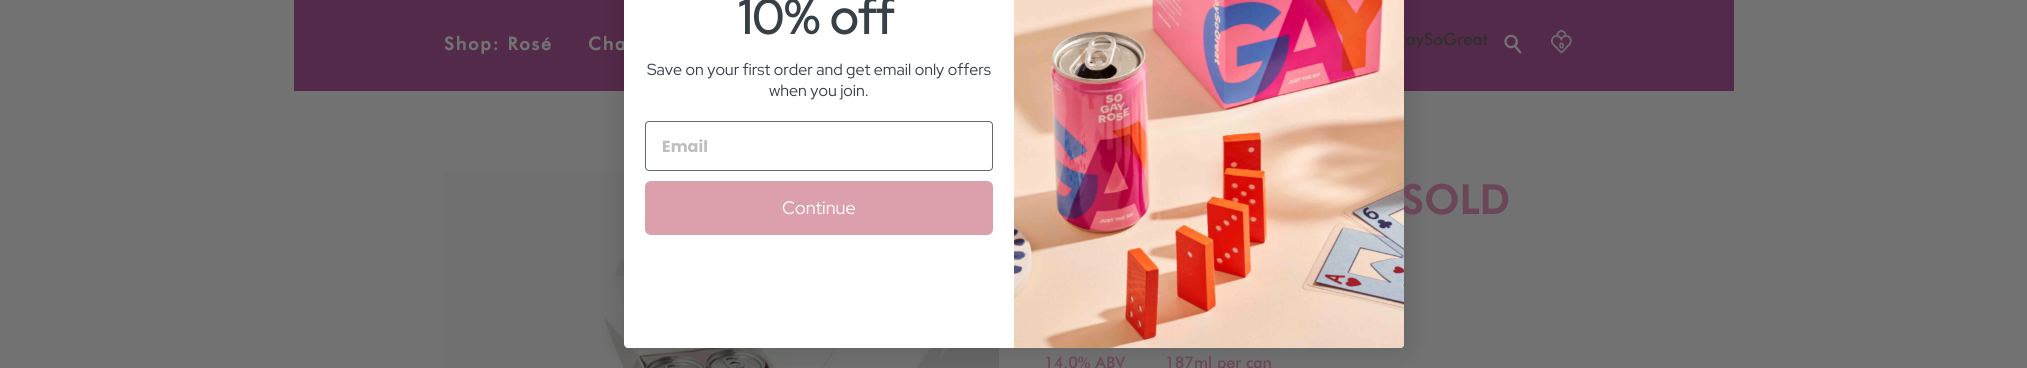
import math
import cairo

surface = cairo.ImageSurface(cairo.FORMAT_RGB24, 2027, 368)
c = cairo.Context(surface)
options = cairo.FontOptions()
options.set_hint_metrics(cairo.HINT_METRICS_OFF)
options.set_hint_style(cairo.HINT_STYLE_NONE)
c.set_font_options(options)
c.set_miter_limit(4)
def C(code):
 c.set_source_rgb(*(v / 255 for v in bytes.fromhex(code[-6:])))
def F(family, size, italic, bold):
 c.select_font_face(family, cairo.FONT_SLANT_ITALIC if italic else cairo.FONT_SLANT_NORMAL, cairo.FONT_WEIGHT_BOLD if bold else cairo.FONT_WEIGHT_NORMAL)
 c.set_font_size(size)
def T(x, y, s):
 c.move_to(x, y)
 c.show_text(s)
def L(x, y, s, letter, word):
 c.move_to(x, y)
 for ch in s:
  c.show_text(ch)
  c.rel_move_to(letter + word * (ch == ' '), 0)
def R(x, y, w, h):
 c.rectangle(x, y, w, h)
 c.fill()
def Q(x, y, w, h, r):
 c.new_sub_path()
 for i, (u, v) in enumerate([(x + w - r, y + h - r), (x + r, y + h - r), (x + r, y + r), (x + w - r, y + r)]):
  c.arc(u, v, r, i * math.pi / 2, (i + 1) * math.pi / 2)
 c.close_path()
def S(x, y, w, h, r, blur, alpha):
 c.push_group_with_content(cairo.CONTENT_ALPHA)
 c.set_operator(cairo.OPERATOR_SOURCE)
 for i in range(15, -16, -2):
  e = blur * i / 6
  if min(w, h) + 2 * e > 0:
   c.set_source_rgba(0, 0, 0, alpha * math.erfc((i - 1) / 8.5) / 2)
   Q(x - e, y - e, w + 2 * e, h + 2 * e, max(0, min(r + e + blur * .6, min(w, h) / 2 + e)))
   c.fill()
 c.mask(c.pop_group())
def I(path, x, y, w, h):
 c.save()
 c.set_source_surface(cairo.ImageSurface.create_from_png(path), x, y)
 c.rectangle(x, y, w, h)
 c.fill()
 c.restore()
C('727272')
c.paint()
C('542a4a')
R(294,0,1440,91)
I('4.png',444,171,555,197)
C('000000')
S(624,-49,780,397,4,15,.15)
F('Futura',18,0,1)
C('727272')
L(588,50,'Cha',1.75,0)
F('Futura',40,0,1)
C('6a4657')
L(1401,214,'SOLD',1,0)
C('ffffff')
c.new_path()
c.move_to(624,0)
c.line_to(1404,0)
c.line_to(1404,344)
c.curve_to(1404,346,1402,348,1400,348)
c.line_to(628,348)
c.curve_to(626,348,624,346,624,344)
c.close_path()
c.fill()
F('Red Hat Display',48,0,1)
C('373f47')
T(738,34,'10% off')
F('Red Hat Display',16,0,0)
T(647,75,'Save on your first order and get email only offers')
T(769,96,'when you join.')
Q(645.5,121.5,347,49,3.5)
C('606a72')
c.set_line_width(1)
c.stroke()
F('Poppins',16,0,1)
C('bfbfc0')
T(662,152,'Email')
C('dba0ab')
Q(645,181,348,54,6)
c.fill()
F('Red Hat Display',18,0,0)
C('ffffff')
T(782,214,'Continue')
I('1.png',1014,0,390,348)
F('Futura',18,0,1)
C('727272')
L(444,50,'Shop: Rosé',1.75,0)
F('Futura Medium',17,0,0)
C('2e2e2e')
T(1406,45,'aySoGreat')
I('2.png',1504,34,18,20)
I('3.png',1551,30,21,23)
F('Futura Medium',16,0,0)
C('6a4657')
T(1044,368,'14.0% ABV')
T(1165,368,'187ml per can')
surface.write_to_png('o.png')
